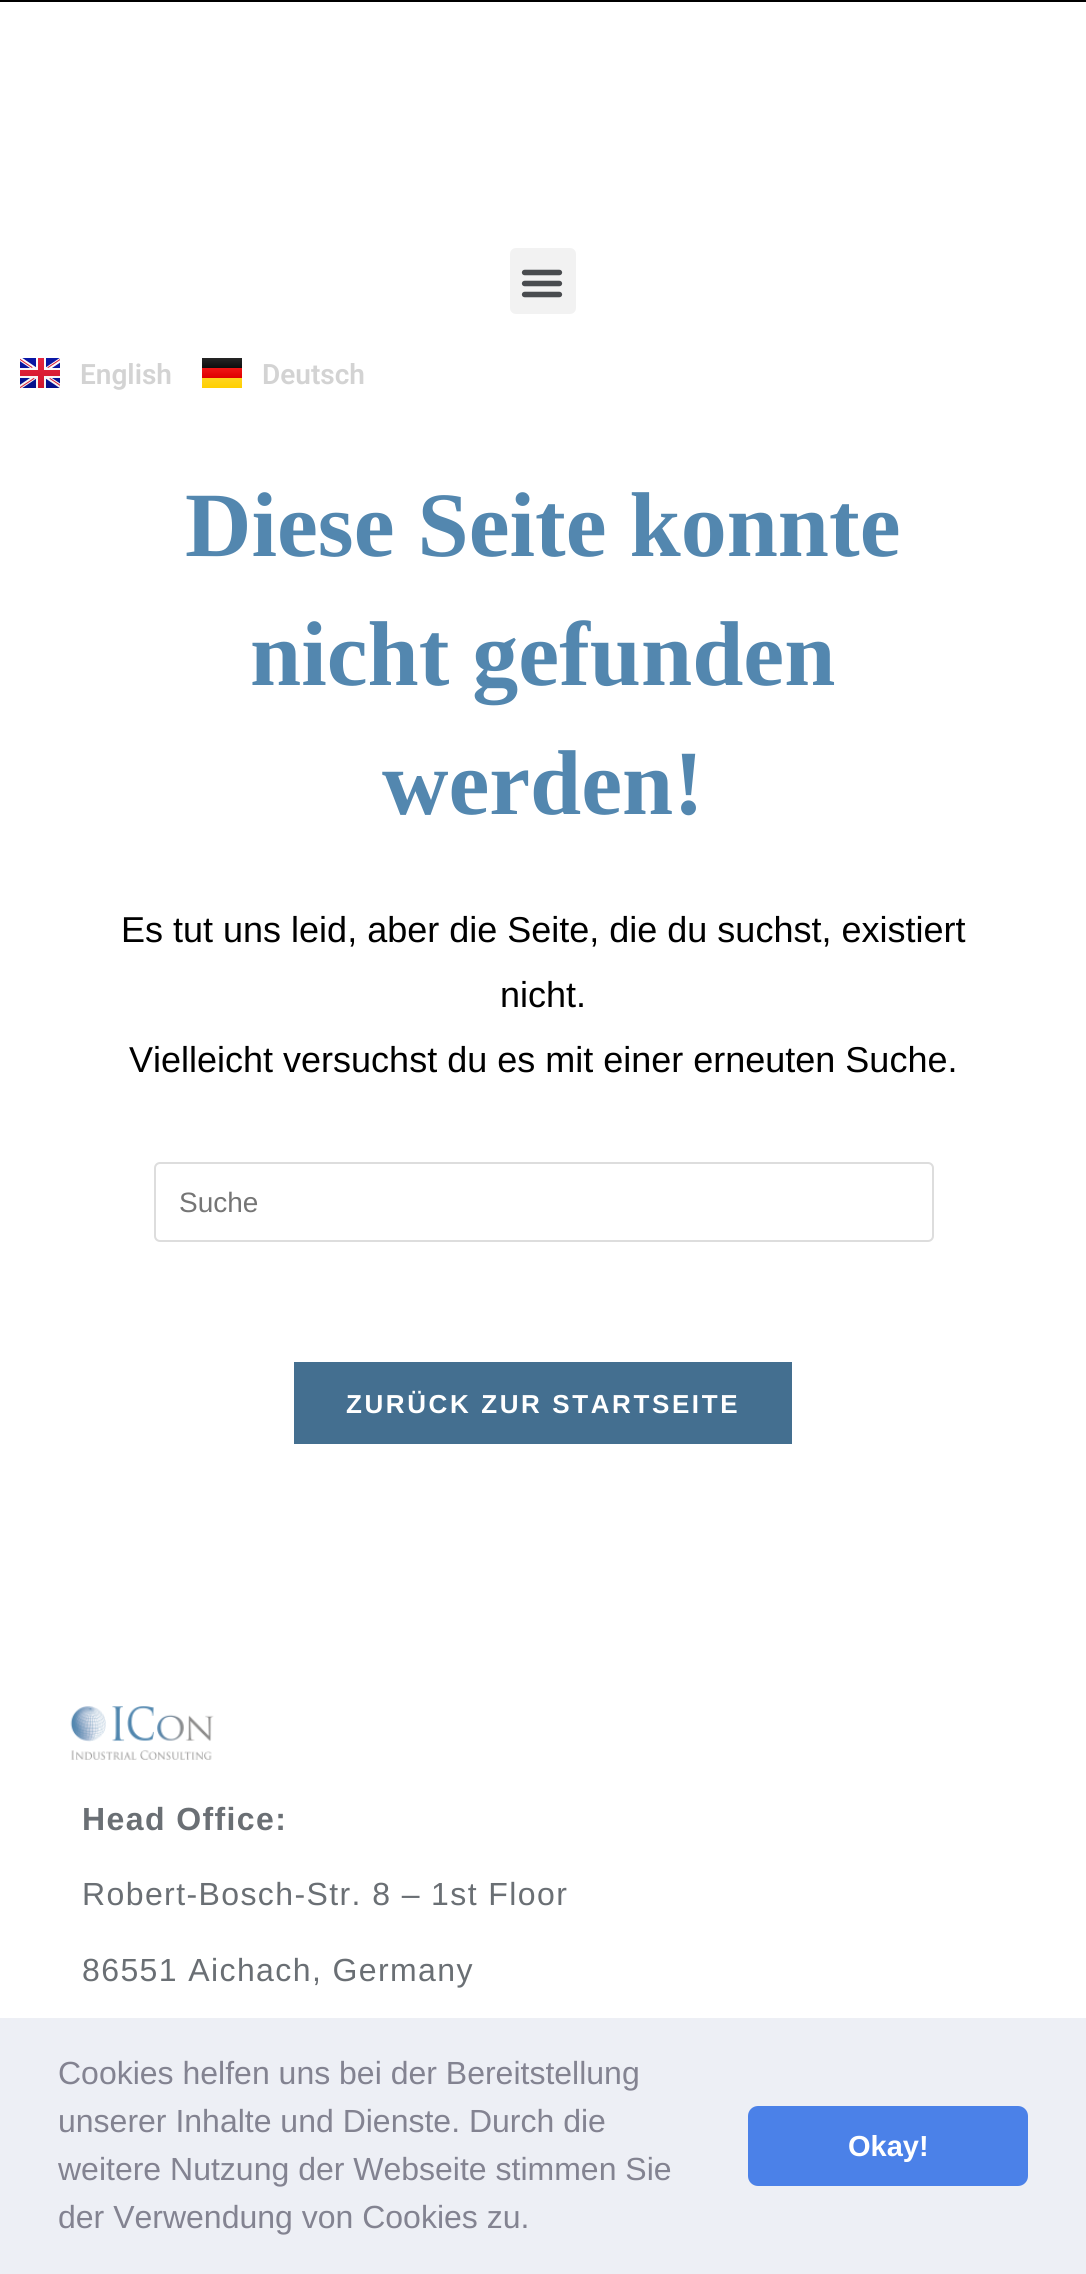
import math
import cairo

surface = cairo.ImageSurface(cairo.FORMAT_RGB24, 1086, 2274)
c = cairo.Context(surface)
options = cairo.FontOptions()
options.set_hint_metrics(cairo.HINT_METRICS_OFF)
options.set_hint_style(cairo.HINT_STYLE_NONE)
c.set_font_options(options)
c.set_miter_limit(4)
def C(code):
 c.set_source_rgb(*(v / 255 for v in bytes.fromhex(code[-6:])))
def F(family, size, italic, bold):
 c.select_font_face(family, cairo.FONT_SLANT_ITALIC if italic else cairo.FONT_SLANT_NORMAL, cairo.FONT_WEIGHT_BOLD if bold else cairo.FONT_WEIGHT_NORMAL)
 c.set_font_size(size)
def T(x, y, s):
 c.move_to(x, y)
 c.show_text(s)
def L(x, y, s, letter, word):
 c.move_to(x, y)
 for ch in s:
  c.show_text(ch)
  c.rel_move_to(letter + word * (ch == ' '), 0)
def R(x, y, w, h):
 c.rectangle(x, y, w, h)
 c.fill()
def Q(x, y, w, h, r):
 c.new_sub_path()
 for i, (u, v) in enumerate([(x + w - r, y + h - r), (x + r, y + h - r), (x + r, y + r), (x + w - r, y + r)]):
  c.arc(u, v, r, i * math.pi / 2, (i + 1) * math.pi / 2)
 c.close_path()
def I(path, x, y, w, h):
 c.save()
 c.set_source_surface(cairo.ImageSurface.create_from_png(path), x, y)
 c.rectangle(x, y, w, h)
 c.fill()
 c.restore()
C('ffffff')
c.paint()
C('000000')
R(0,0,1086,2)
C('f2f2f2')
Q(510,248,66,66,6)
c.fill()
I('1.png',521,269,42,29)
I('2.png',20,358,40,30)
F('Roboto SemiBold',28,0,0)
C('d3d3d3')
T(80,384,'English')
gradient = cairo.LinearGradient(221,358,221,368)
gradient.add_color_stop_rgba(0,0.149,0.149,0.149,1)
gradient.add_color_stop_rgba(1,0.051,0.051,0.051,1)
c.set_source(gradient)
R(202,358,40,10)
gradient = cairo.LinearGradient(221,368,221,378)
gradient.add_color_stop_rgba(0,0.941,0.082,0.082,1)
gradient.add_color_stop_rgba(1,0.871,0,0,1)
c.set_source(gradient)
R(202,368,40,10)
gradient = cairo.LinearGradient(221,378,221,388)
gradient.add_color_stop_rgba(0,1,0.835,0.129,1)
gradient.add_color_stop_rgba(1,1,0.812,0,1)
c.set_source(gradient)
R(202,378,40,10)
C('d3d3d3')
T(262,384,'Deutsch')
F('Liberation Serif',92,0,1)
C('5387af')
T(185,556,'Diese Seite konnte')
T(250,685,'nicht gefunden')
T(382,814,'werden!')
F('Liberation Sans',36,0,0)
C('000000')
T(121,942,'Es tut uns leid, aber die Seite, die du suchst, existiert')
T(500,1007,'nicht.')
T(129,1072,'Vielleicht versuchst du es mit einer erneuten Suche.')
Q(155,1163,778,78,5)
C('dddddd')
c.stroke()
F('Liberation Sans',28,0,0)
C('757575')
T(179,1212,'Suche')
C('446f90')
R(294,1362,498,82)
F('Liberation Sans',26,0,1)
C('ffffff')
L(346,1413,'ZURÜCK ZUR STARTSEITE',2.6,0)
I('3.png',70,1706,144,54)
F('Liberation Sans',32,0,1)
C('6a6f74')
L(82,1830,'Head Office:',1.4,0)
F('Liberation Sans',32,0,0)
L(82,1905,'Robert-Bosch-Str. 8 – 1st Floor',1.4,0)
L(82,1981,'86551 Aichach, Germany',1.4,0)
C('edeff5')
R(0,2018,1086,256)
C('838391')
T(58,2084,'Cookies helfen uns bei der Bereitstellung')
T(58,2132,'unserer Inhalte und Dienste. Durch die')
T(58,2180,'weitere Nutzung der Webseite stimmen Sie')
T(58,2228,'der Verwendung von Cookies zu.')
C('4b81e8')
Q(748,2106,280,80,10)
c.fill()
F('Liberation Sans',29,0,1)
C('ffffff')
T(848,2156,'Okay!')
surface.write_to_png('o.png')
